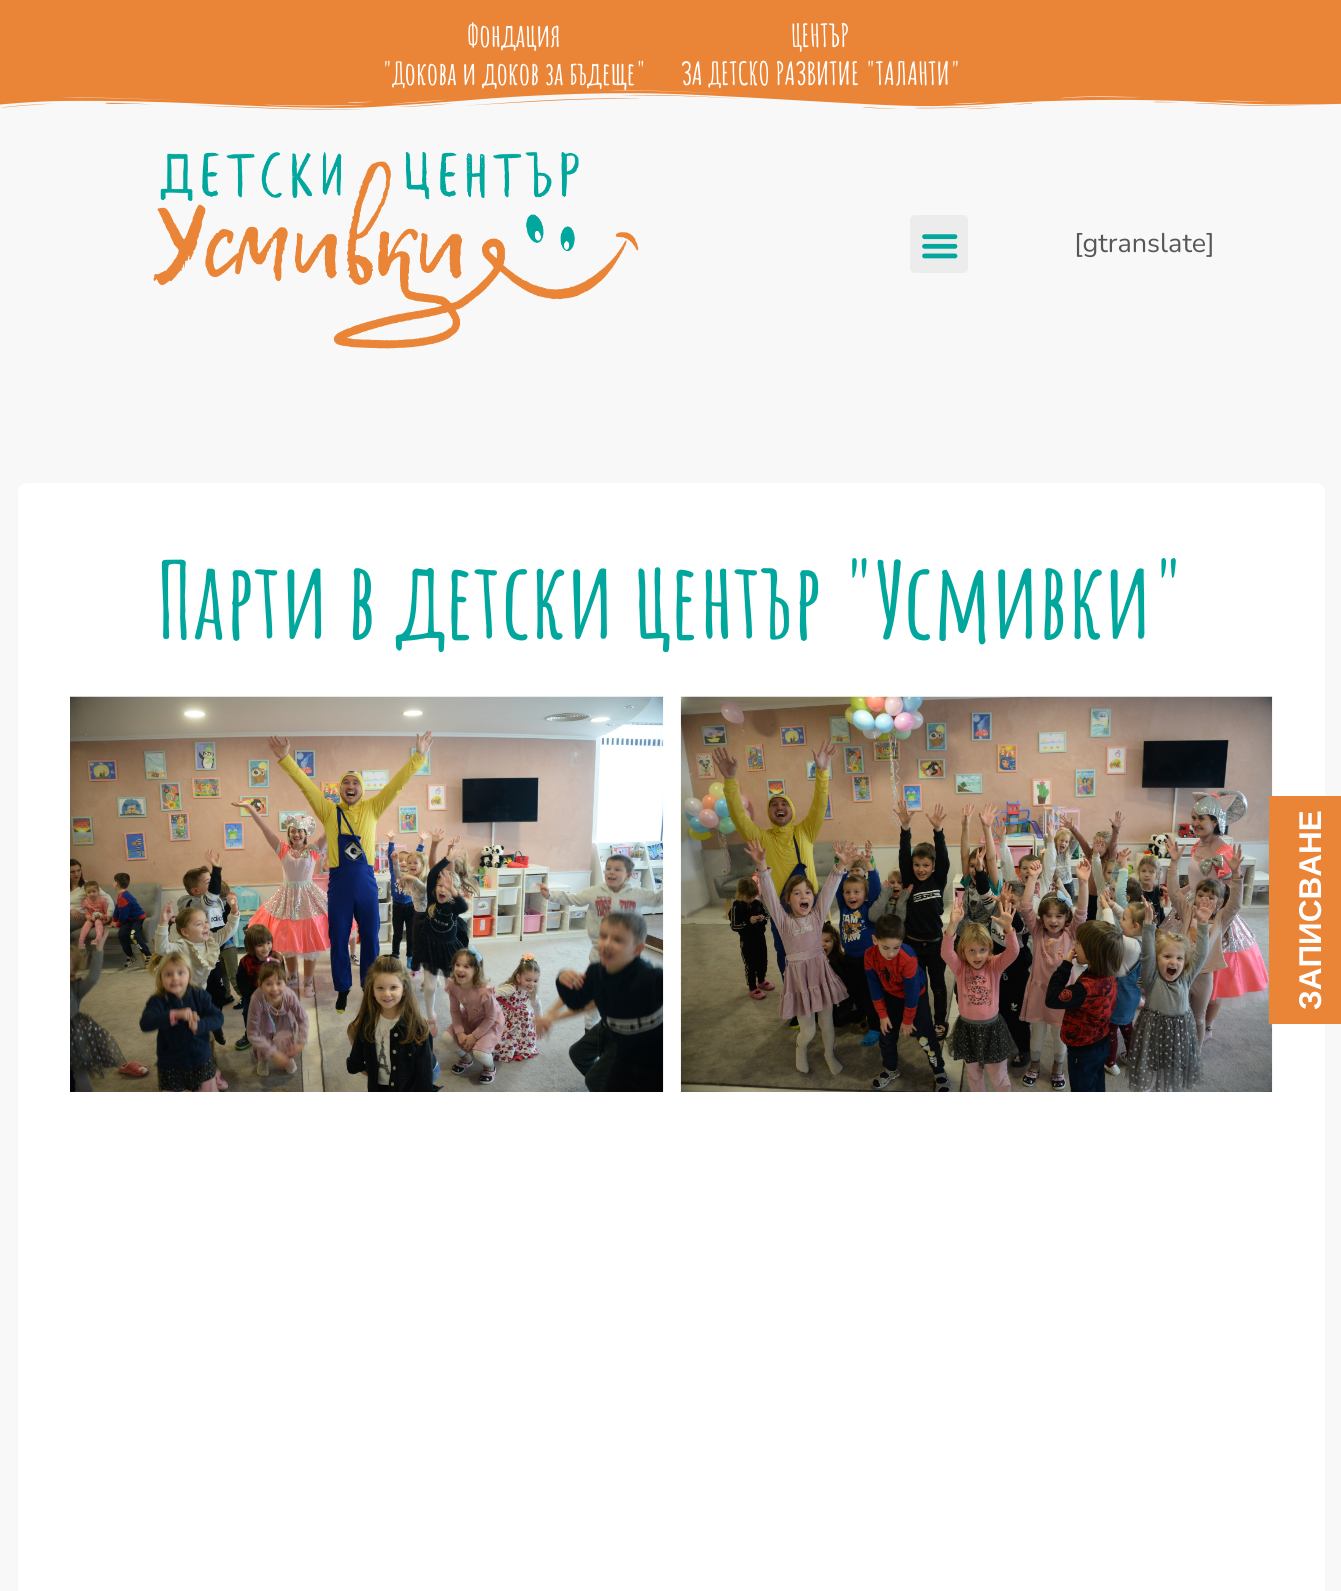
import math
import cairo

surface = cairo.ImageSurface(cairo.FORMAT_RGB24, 1341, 1591)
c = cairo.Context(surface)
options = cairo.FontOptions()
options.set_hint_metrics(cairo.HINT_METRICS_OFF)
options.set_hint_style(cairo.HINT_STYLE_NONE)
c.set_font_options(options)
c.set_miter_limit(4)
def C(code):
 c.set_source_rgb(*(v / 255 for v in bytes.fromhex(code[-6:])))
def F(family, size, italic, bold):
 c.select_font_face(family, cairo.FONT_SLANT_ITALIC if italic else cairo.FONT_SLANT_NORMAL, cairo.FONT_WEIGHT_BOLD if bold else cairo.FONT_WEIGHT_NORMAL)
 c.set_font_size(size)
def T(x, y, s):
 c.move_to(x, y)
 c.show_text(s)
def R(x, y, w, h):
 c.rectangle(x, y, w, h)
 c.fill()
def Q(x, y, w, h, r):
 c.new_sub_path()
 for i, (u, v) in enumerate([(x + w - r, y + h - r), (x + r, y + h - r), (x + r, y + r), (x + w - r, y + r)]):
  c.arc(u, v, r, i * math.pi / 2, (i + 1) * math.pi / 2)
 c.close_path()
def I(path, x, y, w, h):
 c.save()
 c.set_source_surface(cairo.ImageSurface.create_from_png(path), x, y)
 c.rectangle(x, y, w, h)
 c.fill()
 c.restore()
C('f8f8f8')
c.paint()
C('ea8437')
R(0,0,1341,110)
F('Amatic SC',31.5,0,1)
C('ffffff')
T(467,47,'Фондация')
I('1.png',0,90,1341,20)
T(382,85,'"Докова и доков за бъдеще"')
T(791,47,'ЦЕНТЪР')
T(681,85,'ЗА ДЕТСКО РАЗВИТИЕ "ТАЛАНТИ"')
I('2.png',153,151,486,198)
C('ececec')
Q(910,215,58,58,5)
c.fill()
I('3.png',922,234,36,25)
F('Nunito',27,0,0)
C('575757')
T(1074,252,'[gtranslate]')
C('ffffff')
Q(18,483,1307,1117,9)
c.fill()
F('Amatic SC',105,0,1)
C('01a79d')
T(157,639,'Парти в детски център "Усмивки"')
I('4.png',70,696,594,396)
I('5.png',680,696,593,396)
C('ea8437')
R(1269,796,72,228)
F('Liberation Sans',31.5,0,1)
C('ffffff')
c.save()
c.translate(1321,1010)
c.rotate(-90 * math.pi / 180)
T(0,0,'ЗАПИСВАНЕ')
c.restore()
surface.write_to_png('o.png')
